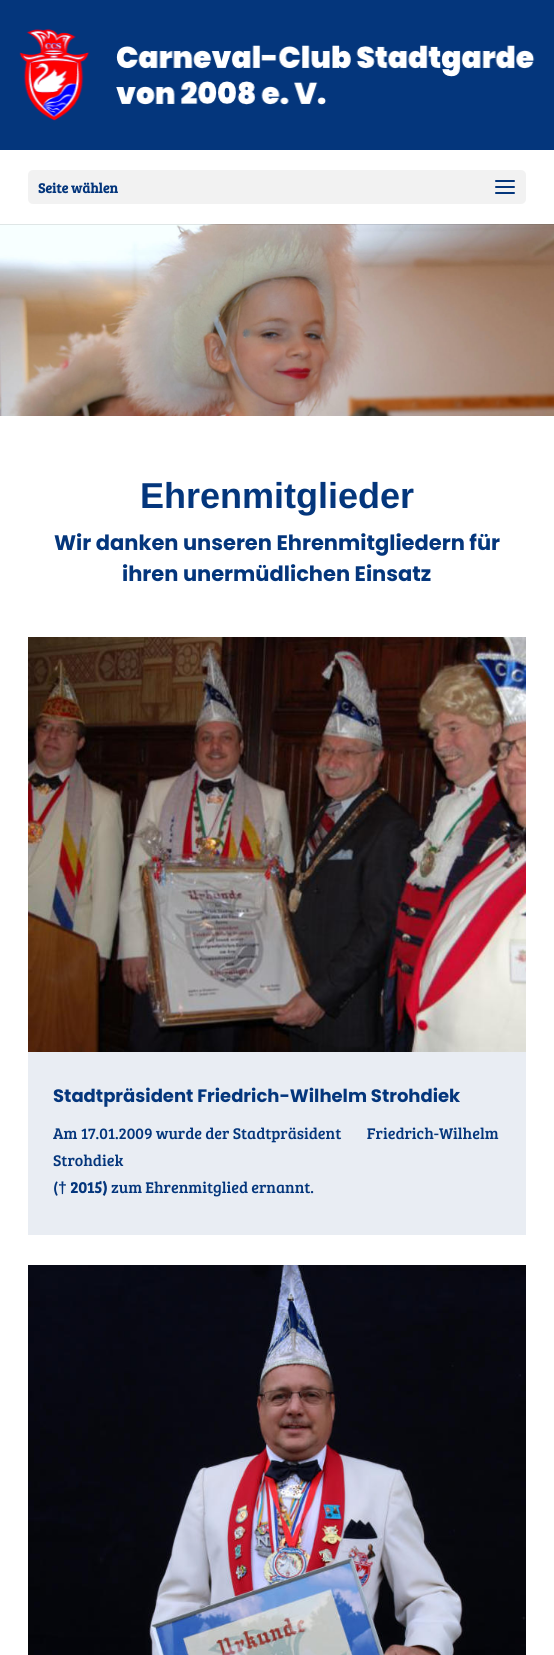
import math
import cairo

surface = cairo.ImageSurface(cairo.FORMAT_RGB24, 554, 1655)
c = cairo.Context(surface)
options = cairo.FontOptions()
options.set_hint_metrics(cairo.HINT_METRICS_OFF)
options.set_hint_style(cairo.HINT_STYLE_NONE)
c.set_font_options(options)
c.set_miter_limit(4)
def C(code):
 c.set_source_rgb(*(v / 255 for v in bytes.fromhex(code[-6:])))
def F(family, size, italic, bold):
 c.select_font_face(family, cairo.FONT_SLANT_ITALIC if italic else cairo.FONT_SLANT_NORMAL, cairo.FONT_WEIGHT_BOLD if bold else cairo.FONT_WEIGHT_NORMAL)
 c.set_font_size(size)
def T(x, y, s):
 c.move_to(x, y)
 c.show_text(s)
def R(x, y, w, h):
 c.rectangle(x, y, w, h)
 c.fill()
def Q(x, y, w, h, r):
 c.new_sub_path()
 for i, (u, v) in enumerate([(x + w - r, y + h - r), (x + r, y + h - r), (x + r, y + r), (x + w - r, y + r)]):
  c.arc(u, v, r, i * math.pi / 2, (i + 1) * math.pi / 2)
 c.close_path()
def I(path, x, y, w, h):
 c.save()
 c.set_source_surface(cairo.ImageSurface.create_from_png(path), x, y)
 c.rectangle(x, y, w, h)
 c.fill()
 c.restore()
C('ffffff')
c.paint()
C('04367c')
R(0,0,554,150)
I('1.png',19,29,516,92)
I('3.png',0,224,554,192)
c.set_source_rgba(0,0,0,0.1)
R(0,224,554,1)
C('f2f2f2')
Q(28,170,498,34,5)
c.fill()
F('Bree Serif',14,0,1)
C('04367c')
T(38,193,'Seite wählen')
I('2.png',495,180,20,14)
F('Liberation Sans',36,0,1)
T(140,508,'Ehrenmitglieder')
F('Poppins',21,0,1)
T(54,550,'Wir danken unseren Ehrenmitgliedern für')
T(122,581,'ihren unermüdlichen Einsatz')
C('e9edf3')
R(28,1052,498,183)
I('4.png',28,637,498,415)
F('Poppins',18,0,1)
C('04367c')
T(53,1102,'Stadtpräsident Friedrich-Wilhelm Strohdiek')
F('Bree Serif',16,0,0)
T(53,1139,'Am 17.01.2009 wurde der Stadtpräsident        Friedrich-Wilhelm')
T(53,1166,'Strohdiek')
T(53,1193,'(')
F('Liberation Sans',16,0,1)
T(58,1193,'†')
F('Bree Serif',16,0,1)
T(70,1193,'2015)')
F('Bree Serif',16,0,0)
T(111,1193,'zum Ehrenmitglied ernannt.')
I('5.png',28,1265,498,390)
surface.write_to_png('o.png')
